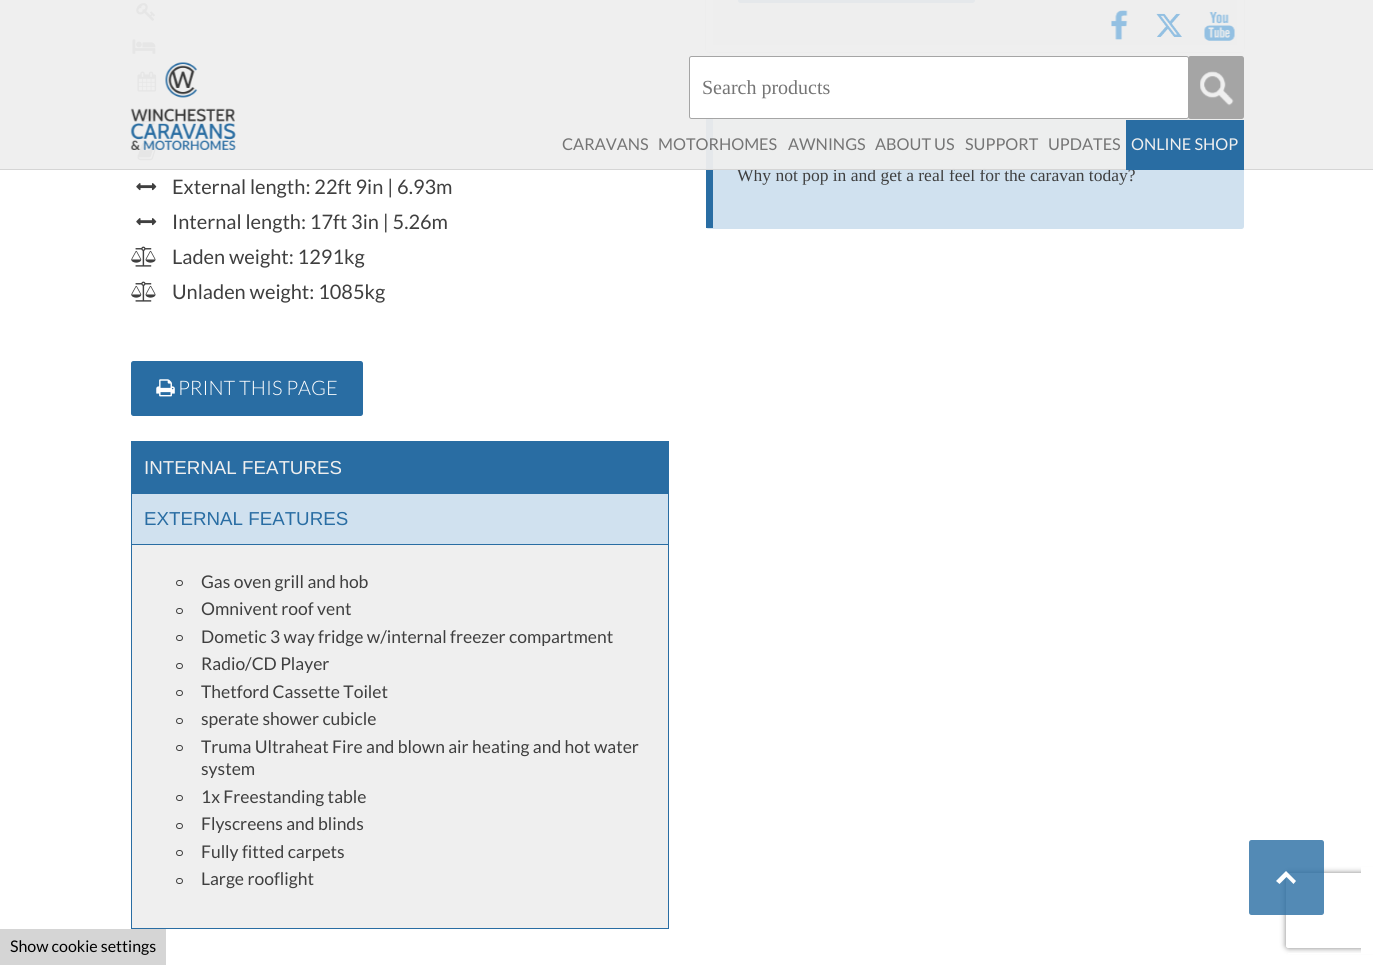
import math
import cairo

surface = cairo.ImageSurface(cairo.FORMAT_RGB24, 1373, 965)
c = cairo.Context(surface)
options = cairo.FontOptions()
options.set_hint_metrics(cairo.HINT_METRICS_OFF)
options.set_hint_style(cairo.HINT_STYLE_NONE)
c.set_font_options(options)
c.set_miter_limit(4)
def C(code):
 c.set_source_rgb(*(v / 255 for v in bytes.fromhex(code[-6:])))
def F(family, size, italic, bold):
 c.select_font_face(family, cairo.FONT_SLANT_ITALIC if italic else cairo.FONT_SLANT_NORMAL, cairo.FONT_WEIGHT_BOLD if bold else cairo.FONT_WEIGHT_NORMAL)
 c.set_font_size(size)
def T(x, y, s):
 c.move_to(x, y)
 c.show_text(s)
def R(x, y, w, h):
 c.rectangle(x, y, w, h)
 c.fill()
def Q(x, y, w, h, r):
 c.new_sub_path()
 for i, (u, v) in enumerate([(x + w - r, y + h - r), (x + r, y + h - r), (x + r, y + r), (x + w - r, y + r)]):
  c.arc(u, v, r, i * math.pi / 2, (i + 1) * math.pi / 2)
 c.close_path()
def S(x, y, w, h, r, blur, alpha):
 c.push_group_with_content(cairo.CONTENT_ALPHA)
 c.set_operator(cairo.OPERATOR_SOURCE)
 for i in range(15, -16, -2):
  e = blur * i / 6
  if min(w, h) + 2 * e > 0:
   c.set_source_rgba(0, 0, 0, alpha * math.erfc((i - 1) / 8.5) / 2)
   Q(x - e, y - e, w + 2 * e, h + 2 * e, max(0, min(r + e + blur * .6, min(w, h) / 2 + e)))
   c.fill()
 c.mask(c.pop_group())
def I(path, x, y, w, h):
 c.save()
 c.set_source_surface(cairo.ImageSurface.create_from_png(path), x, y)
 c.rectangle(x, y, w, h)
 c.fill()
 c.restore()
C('ffffff')
c.paint()
I('7.png',132,39,24,15)
I('8.png',137,71,20,21)
I('9.png',137,109,20,17)
I('10.png',137,143,20,18)
Q(705.5,-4.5,539,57,3.5)
C('dcdcdc')
c.set_line_width(1)
c.stroke()
C('efefef')
Q(706,-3,538,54,2.5)
c.fill()
c.new_path()
c.move_to(709.5,-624.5)
c.line_to(1240.5,-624.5)
c.line_to(1240.5,48)
c.line_to(709.5,48)
c.close_path()
C('ffffff')
c.set_line_width(6.2)
c.stroke()
C('d0e1ef')
Q(706,89,538,140,2.5)
c.fill()
C('296da3')
R(706,119,7,109)
F('Liberation Serif',17.5,0,0)
C('3f3f3f')
T(737,181,'Why not pop in and get a real feel for the caravan today?')
c.set_source_rgba(0.937,0.937,0.937,0.95)
R(0,44,1373,125)
C('d5d5d5')
R(0,169,1373,1)
I('6.png',136,3,19,18)
C('296da3')
Q(738,-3,237,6,2.5)
c.fill()
c.set_source_rgba(0.937,0.937,0.937,0.95)
R(0,0,1373,44)
I('1.png',1111,10,17,30)
I('2.png',1156,13,26,24)
I('3.png',1204,12,31,29)
I('4.png',130,62,106,88)
C('ffffff')
Q(689.5,56.5,499,62,2)
c.fill_preserve()
C('a5a5a5')
c.set_line_width(1)
c.stroke()
F('Liberation Serif',20,0,0)
C('757575')
T(702,94,'Search products')
C('a5a5a5')
Q(1188,56,56,63,2.5)
c.fill()
I('5.png',1200,71,34,35)
F('Lato',16.25,0,0)
C('757575')
T(562,150,'CARAVANS')
T(658,150,'MOTORHOMES')
T(788,150,'AWNINGS')
T(875,150,'ABOUT US')
T(965,150,'SUPPORT')
T(1048,150,'UPDATES')
C('296da3')
R(1126,120,118,50)
C('efefef')
T(1131,150,'ONLINE SHOP')
I('11.png',136,183,21,8)
F('Lato',20,0,0)
C('3f3f3f')
T(172,194,'External length: 22ft 9in | 6.93m')
I('11.png',136,218,21,8)
T(172,229,'Internal length: 17ft 3in | 5.26m')
I('12.png',131,246,25,21)
T(172,264,'Laden weight: 1291kg')
I('12.png',131,281,25,21)
T(172,299,'Unladen weight: 1085kg')
C('296da3')
Q(131,361,232,55,2.5)
c.fill()
I('13.png',156,379,19,18)
F('Lato Light',20,0,0)
C('ffffff')
T(178,395,'PRINT THIS PAGE')
C('296da3')
R(131,441,538,53)
F('Liberation Sans',18.75,0,0)
C('efefef')
T(144,474,'INTERNAL FEATURES')
C('d0e1ef')
R(132,494,536,50)
C('296da3')
R(668,493,1,51)
R(131,493,1,51)
T(144,525,'EXTERNAL FEATURES')
C('efefef')
c.rectangle(131.5,544.5,537,384)
c.fill_preserve()
C('296da3')
c.stroke()
Q(176.5,580.5,6,5,2.5)
C('3f3f3f')
c.stroke()
F('Lato',17.5,0,0)
T(201,588,'Gas oven grill and hob')
Q(176.5,608.5,6,5,2.5)
c.stroke()
T(201,615,'Omnivent roof vent')
Q(176.5,635.5,6,5,2.5)
c.stroke()
T(201,643,'Dometic 3 way fridge w/internal freezer compartment')
Q(176.5,663.5,6,5,2.5)
c.stroke()
T(201,670,'Radio/CD Player')
Q(176.5,690.5,6,5,2.5)
c.stroke()
T(201,698,'Thetford Cassette Toilet')
Q(176.5,718.5,6,5,2.5)
c.stroke()
T(201,725,'sperate shower cubicle')
Q(176.5,745.5,6,5,2.5)
c.stroke()
T(201,753,'Truma Ultraheat Fire and blown air heating and hot water')
T(201,775,'system')
Q(176.5,795.5,6,5,2.5)
c.stroke()
T(201,803,'1x Freestanding table')
Q(176.5,823.5,6,5,2.5)
c.stroke()
T(201,830,'Flyscreens and blinds')
Q(176.5,850.5,6,5,2.5)
c.stroke()
T(201,858,'Fully fitted carpets')
Q(176.5,878.5,6,5,2.5)
c.stroke()
T(201,885,'Large rooflight')
c.save()
c.set_fill_rule(cairo.FILL_RULE_EVEN_ODD)
c.new_path()
c.move_to(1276,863)
c.line_to(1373,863)
c.line_to(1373,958)
c.line_to(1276,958)
c.close_path()
c.move_to(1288.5,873)
c.line_to(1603.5,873)
c.curve_to(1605,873,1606,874,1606,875.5)
c.line_to(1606,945.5)
c.curve_to(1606,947,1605,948,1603.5,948)
c.line_to(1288.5,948)
c.curve_to(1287,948,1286,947,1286,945.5)
c.line_to(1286,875.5)
c.curve_to(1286,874,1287,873,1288.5,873)
c.close_path()
c.clip()
C('808080')
S(1286,873,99,75,2.5,3,1)
c.restore()
c.set_source_rgba(0.161,0.427,0.639,0.8)
Q(1249,840,75,75,2.5)
c.fill()
C('ffffff')
c.new_path()
c.move_to(1286,871)
c.line_to(1296,881)
c.line_to(1293.5,884)
c.line_to(1286.5,877)
c.line_to(1279.5,884)
c.line_to(1276,881)
c.close_path()
c.fill()
C('d5d5d5')
R(0,929,166,36)
F('Lato',16,0,0)
C('000000')
T(10,952,'Show cookie settings')
C('ffffff')
R(1361,867,12,86)
R(1288,953,85,1)
surface.write_to_png('o.png')
